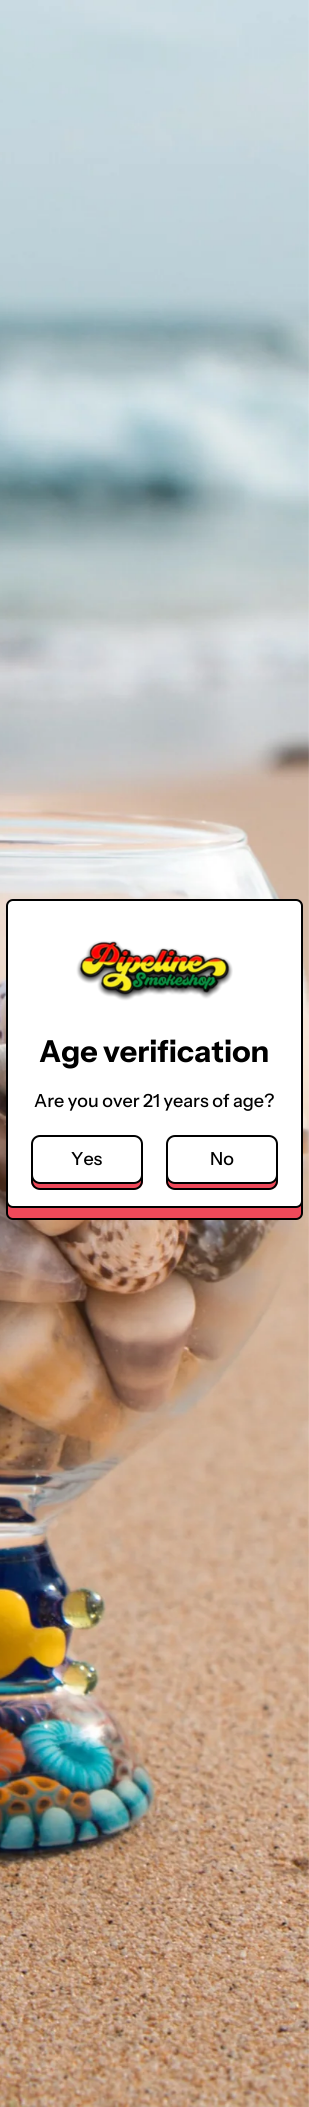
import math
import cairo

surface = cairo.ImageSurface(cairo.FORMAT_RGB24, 309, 2107)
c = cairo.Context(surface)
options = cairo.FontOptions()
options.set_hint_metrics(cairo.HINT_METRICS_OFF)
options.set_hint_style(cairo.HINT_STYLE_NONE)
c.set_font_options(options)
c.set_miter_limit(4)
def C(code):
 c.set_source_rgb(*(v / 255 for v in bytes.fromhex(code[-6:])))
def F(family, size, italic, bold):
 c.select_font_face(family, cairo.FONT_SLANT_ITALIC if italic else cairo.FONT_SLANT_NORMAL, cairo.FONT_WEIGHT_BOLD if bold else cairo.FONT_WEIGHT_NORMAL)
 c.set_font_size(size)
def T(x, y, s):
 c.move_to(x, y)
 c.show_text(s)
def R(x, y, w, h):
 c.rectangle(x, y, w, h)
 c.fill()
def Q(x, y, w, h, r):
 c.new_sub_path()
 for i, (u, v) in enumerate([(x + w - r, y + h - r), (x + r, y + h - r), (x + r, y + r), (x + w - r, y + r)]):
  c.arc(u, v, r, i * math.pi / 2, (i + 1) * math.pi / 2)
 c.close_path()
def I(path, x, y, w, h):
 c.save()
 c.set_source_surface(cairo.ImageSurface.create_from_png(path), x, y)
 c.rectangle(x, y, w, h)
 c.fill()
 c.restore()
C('ffffff')
c.paint()
I('1.png',0,0,309,2107)
gradient = cairo.LinearGradient(154,911,155,1220)
gradient.add_color_stop_rgba(.1,0.867,1,0.467,1)
gradient.add_color_stop_rgba(.54,0.992,0.455,0.341,1)
gradient.add_color_stop_rgba(.92,0.937,0.286,0.353,1)
c.set_source(gradient)
Q(7,912,295,307,6)
c.fill_preserve()
C('000000')
c.stroke()
C('ffffff')
Q(7,900,295,307,6)
c.fill_preserve()
C('000000')
c.stroke()
I('2.png',76,940,157,61)
F('Instrument Sans',30.25,0,1)
T(39,1062,'Age verification')
F('Instrument Sans Medium',18,0,0)
T(34,1107,'Are you over 21 years of age?')
c.save()
Q(31,1141,112,49,9)
c.clip()
gradient = cairo.LinearGradient(87,1143,87,1188)
gradient.add_color_stop_rgba(.1,0.867,1,0.467,1)
gradient.add_color_stop_rgba(.54,0.992,0.455,0.341,1)
gradient.add_color_stop_rgba(.92,0.937,0.286,0.353,1)
c.set_source(gradient)
R(31,1180,112,8)
c.restore()
Q(32,1142,110,47,8)
c.stroke()
C('ffffff')
Q(32,1136,110,47,8)
c.fill_preserve()
C('000000')
c.stroke()
T(71,1165,'Yes')
c.save()
Q(166,1141,112,49,9)
c.clip()
gradient = cairo.LinearGradient(222,1143,222,1188)
gradient.add_color_stop_rgba(.1,0.867,1,0.467,1)
gradient.add_color_stop_rgba(.54,0.992,0.455,0.341,1)
gradient.add_color_stop_rgba(.92,0.937,0.286,0.353,1)
c.set_source(gradient)
R(166,1180,112,8)
c.restore()
Q(167,1142,110,47,8)
c.stroke()
C('ffffff')
Q(167,1136,110,47,8)
c.fill_preserve()
C('000000')
c.stroke()
T(210,1165,'No')
surface.write_to_png('o.png')
